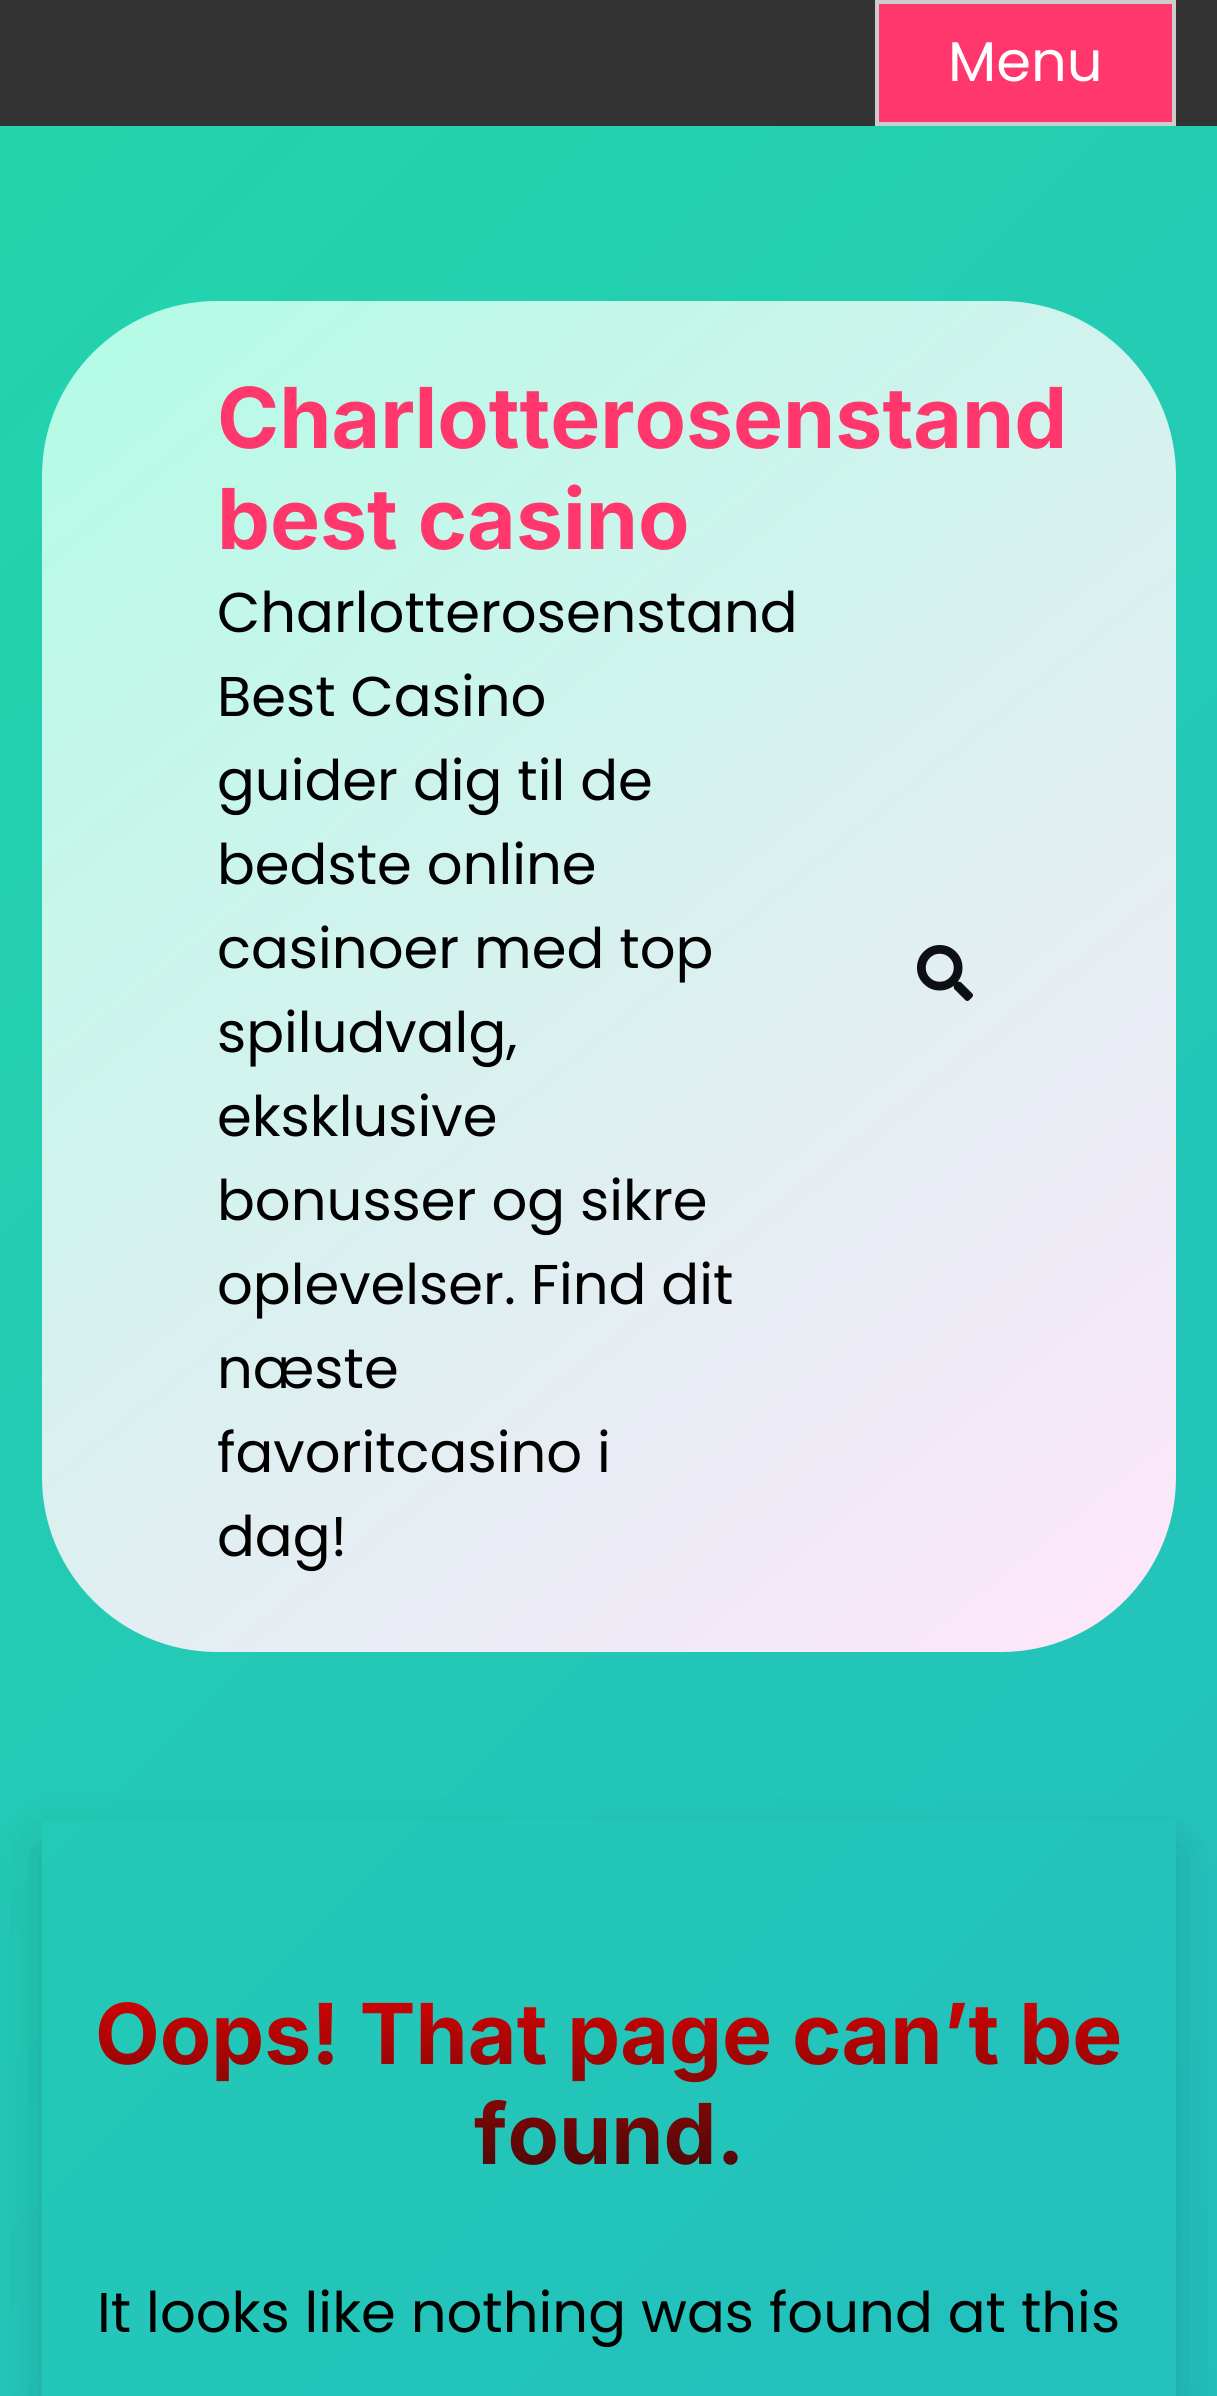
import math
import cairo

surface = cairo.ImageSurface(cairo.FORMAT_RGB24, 1217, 2396)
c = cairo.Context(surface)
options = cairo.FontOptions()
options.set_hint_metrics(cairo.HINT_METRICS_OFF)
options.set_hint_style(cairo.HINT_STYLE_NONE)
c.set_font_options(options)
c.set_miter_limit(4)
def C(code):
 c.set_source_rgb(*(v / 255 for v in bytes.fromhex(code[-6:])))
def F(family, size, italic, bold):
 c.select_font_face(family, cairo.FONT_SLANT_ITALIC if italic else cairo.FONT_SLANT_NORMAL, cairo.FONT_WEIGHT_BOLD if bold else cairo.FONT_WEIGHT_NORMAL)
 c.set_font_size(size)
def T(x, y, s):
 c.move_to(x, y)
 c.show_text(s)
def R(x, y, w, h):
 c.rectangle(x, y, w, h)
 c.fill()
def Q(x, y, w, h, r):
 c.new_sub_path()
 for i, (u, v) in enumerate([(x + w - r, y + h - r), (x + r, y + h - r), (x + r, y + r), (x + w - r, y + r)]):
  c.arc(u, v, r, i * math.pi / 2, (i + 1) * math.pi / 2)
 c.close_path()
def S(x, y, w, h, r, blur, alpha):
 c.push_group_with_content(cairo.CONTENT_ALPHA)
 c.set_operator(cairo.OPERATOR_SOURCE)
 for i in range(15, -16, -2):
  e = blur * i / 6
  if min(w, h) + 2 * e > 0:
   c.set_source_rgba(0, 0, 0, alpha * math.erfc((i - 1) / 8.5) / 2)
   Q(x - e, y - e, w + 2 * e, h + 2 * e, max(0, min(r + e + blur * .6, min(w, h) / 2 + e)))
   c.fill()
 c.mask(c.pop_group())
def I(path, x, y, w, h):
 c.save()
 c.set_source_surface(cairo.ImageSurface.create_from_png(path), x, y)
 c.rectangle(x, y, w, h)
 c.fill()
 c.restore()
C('ffffff')
c.paint()
gradient = cairo.LinearGradient(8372,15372,-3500,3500)
gradient.add_color_stop_rgba(0,0.933,0.467,0.322,1)
gradient.add_color_stop_rgba(.33,0.906,0.235,0.494,1)
gradient.add_color_stop_rgba(.67,0.137,0.651,0.835,1)
gradient.add_color_stop_rgba(1,0.137,0.835,0.671,1)
c.set_source(gradient)
R(0,126,1217,2270)
C('333333')
R(0,0,1217,126)
C('ff376c')
c.rectangle(877,2,297,122)
c.fill_preserve()
C('cccccc')
c.set_line_width(4)
c.stroke()
F('Poppins',56,0,0)
C('ffffff')
T(948,81,'Menu')
gradient = cairo.LinearGradient(54,291,1164,1662)
gradient.add_color_stop_rgba(0,0.698,0.988,0.898,1)
gradient.add_color_stop_rgba(1,1,0.902,0.98,1)
c.set_source(gradient)
Q(42,301,1134,1351,175)
c.fill()
F('Inter',84,0,1)
C('ff376c')
T(217,448,'Charlotterosenstand')
T(217,549,'best casino')
F('Poppins',56,0,0)
C('000000')
T(217,632,'Charlotterosenstand')
T(217,716,'Best Casino')
T(217,800,'guider dig til de')
T(217,884,'bedste online')
T(217,968,'casinoer med top')
T(217,1052,'spiludvalg,')
T(217,1136,'eksklusive')
T(217,1220,'bonusser og sikre')
T(217,1304,'oplevelser. Find dit')
T(217,1388,'næste')
T(217,1472,'favoritcasino i')
T(217,1556,'dag!')
I('1.png',917,945,56,56)
c.save()
c.set_fill_rule(cairo.FILL_RULE_EVEN_ODD)
c.new_path()
c.move_to(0,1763)
c.line_to(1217,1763)
c.line_to(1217,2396)
c.line_to(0,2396)
c.close_path()
c.move_to(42,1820)
c.line_to(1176,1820)
c.line_to(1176,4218)
c.line_to(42,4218)
c.close_path()
c.clip()
C('000000')
S(42,1848,1134,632,0,28,.15)
c.restore()
F('Inter',84,0,1)
gradient = cairo.LinearGradient(609,1987,609,2188)
gradient.add_color_stop_rgba(0,0.839,0.012,0.012,1)
gradient.add_color_stop_rgba(1,0.255,0.035,0.035,1)
c.set_source(gradient)
T(95,2064,'Oops! That page can’t be')
T(474,2164,'found.')
F('Poppins',56,0,0)
C('000000')
T(97,2332,'It looks like nothing was found at this')
surface.write_to_png('o.png')
